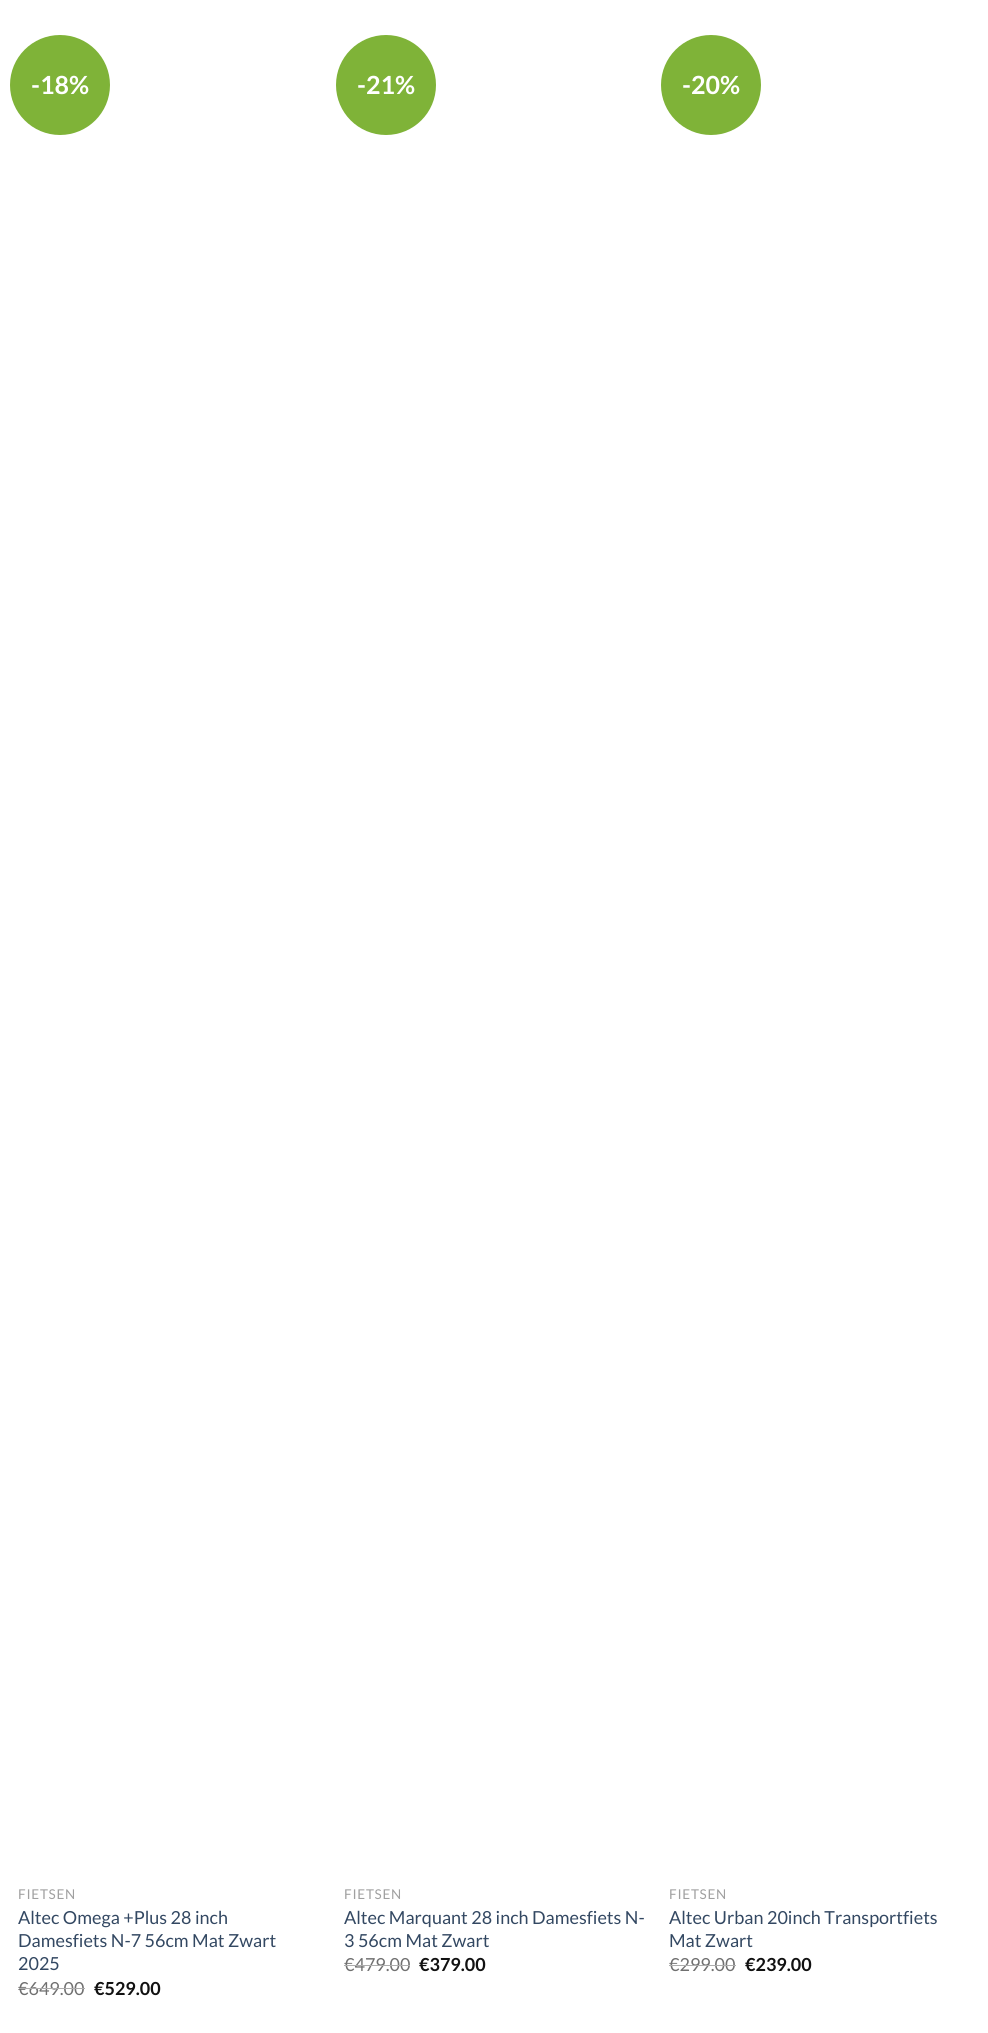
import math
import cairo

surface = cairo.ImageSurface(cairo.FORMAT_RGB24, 988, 2033)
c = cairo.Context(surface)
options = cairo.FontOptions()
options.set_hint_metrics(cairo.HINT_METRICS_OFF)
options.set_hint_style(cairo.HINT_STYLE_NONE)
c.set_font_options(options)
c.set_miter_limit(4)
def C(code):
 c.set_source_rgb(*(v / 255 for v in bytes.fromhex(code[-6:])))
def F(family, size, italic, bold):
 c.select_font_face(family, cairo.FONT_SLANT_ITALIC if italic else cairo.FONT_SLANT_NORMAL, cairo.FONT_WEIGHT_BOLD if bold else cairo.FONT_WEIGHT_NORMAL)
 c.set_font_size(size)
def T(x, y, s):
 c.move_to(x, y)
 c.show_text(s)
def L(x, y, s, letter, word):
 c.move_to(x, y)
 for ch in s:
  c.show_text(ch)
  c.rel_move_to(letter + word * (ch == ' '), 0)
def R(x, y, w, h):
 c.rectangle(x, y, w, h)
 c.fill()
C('ffffff')
c.paint()
C('7fb338')
c.arc(60,85,50,0,2 * math.pi)
c.fill()
F('Lato',25,0,1)
C('ffffff')
T(31,94,'-18%')
F('Lato',13.5,0,0)
C('a0a0a0')
L(18,1899,'FIETSEN',.75,0)
F('Lato',18,0,0)
C('334862')
T(18,1924,'Altec Omega +Plus 28 inch')
T(18,1947,'Damesfiets N-7 56cm Mat Zwart')
T(18,1970,'2025')
C('707070')
T(18,1995,'€649.00')
C('adadad')
R(19,1988,66,1)
F('Lato',18,0,1)
C('111111')
T(94,1995,'€529.00')
C('7fb338')
c.new_path()
c.arc(386,85,50,0,2 * math.pi)
c.fill()
F('Lato',25,0,1)
C('ffffff')
T(357,94,'-21%')
F('Lato',13.5,0,0)
C('a0a0a0')
L(344,1899,'FIETSEN',.75,0)
F('Lato',18,0,0)
C('334862')
T(344,1924,'Altec Marquant 28 inch Damesfiets N-')
T(344,1947,'3 56cm Mat Zwart')
C('707070')
T(344,1971,'€479.00')
C('adadad')
R(344,1965,66,1)
F('Lato',18,0,1)
C('111111')
T(419,1971,'€379.00')
C('7fb338')
c.new_path()
c.arc(711,85,50,0,2 * math.pi)
c.fill()
F('Lato',25,0,1)
C('ffffff')
T(682,94,'-20%')
F('Lato',13.5,0,0)
C('a0a0a0')
L(669,1899,'FIETSEN',.75,0)
F('Lato',18,0,0)
C('334862')
T(669,1924,'Altec Urban 20inch Transportfiets')
T(669,1947,'Mat Zwart')
C('707070')
T(669,1971,'€299.00')
C('adadad')
R(669,1965,67,1)
F('Lato',18,0,1)
C('111111')
T(745,1971,'€239.00')
surface.write_to_png('o.png')
